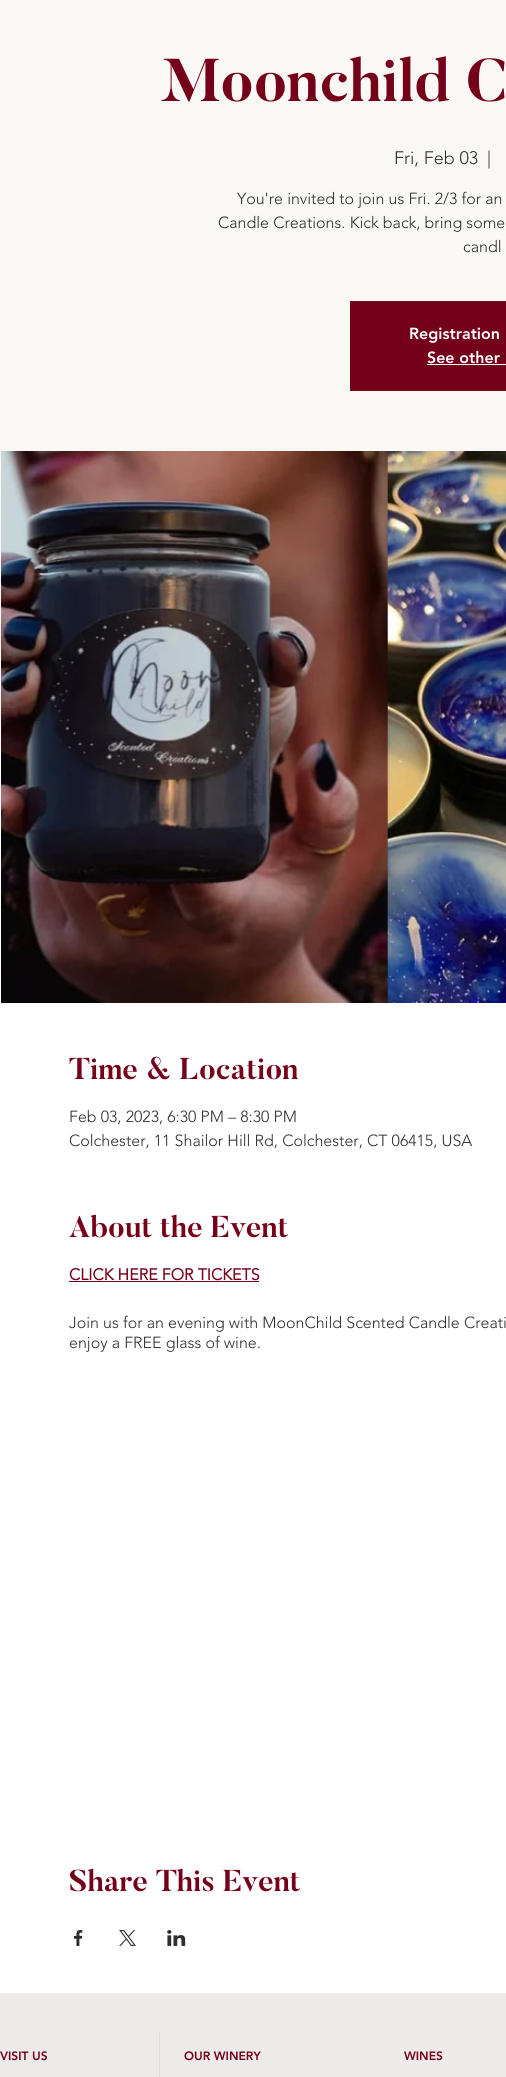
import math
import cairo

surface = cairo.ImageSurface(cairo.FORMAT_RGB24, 506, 2077)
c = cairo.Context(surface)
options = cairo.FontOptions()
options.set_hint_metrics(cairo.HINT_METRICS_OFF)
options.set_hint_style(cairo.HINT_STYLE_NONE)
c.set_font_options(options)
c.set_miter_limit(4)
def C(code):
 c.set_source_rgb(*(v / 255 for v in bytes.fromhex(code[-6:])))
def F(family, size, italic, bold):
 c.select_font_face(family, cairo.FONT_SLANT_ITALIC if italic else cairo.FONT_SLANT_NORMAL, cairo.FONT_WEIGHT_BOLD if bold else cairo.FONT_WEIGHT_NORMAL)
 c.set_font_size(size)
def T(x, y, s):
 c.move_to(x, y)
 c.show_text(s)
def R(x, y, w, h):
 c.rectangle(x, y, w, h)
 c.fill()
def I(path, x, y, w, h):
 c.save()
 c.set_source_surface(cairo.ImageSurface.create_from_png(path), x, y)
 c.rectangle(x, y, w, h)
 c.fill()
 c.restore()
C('ffffff')
c.paint()
C('faf8f5')
R(0,0,506,727)
F('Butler',60,0,1)
C('750019')
T(161,101,'Moonchild C')
F('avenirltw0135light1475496 Light',18,0,0)
C('2f2e2e')
T(394,164,'Fri, Feb 03')
T(487,164,'|')
F('avenirltw0135light1475496 Light',16,0,0)
T(237,204,'You\'re invited to join us Fri. 2/3 for an')
T(218,228,'Candle Creations. Kick back, bring some')
T(463,252,'candl')
C('750019')
R(350,301,156,90)
F('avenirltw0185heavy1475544 Black',16,0,0)
C('ffffff')
T(409,339,'Registration')
T(427,363,'See other')
R(427,364,79,1)
I('1.png',1,451,505,552)
F('Butler',30,0,1)
C('750019')
T(69,1079,'Time & Location')
F('avenirltw0135light1475496 Light',16,0,0)
C('2f2e2e')
T(69,1122,'Feb 03, 2023, 6:30 PM – 8:30 PM')
T(69,1146,'Colchester, 11 Shailor Hill Rd, Colchester, CT 06415, USA')
F('Butler',30,0,1)
C('750019')
T(69,1237,'About the Event')
F('avenirltw0135light1475496',16,0,1)
T(69,1280,'CLICK HERE FOR TICKETS')
R(69,1281,190,1)
F('avenirltw0135light1475496 Light',16,0,0)
C('2f2e2e')
T(69,1328,'Join us for an evening with MoonChild Scented Candle Creati')
T(69,1348,'enjoy a FREE glass of wine.')
F('Butler',30,0,1)
C('750019')
T(69,1891,'Share This Event')
I('2.png',74,1930,9,16)
I('3.png',119,1930,17,16)
I('4.png',167,1930,19,16)
C('edeaea')
R(0,1993,506,84)
F('avenirltw0185heavy1475544 Black',12,0,0)
C('750019')
T(0,2060,'VISIT US')
C('dfdddd')
R(159,2032,1,45)
C('750019')
T(184,2060,'OUR WINERY')
T(404,2060,'WINES')
surface.write_to_png('o.png')
